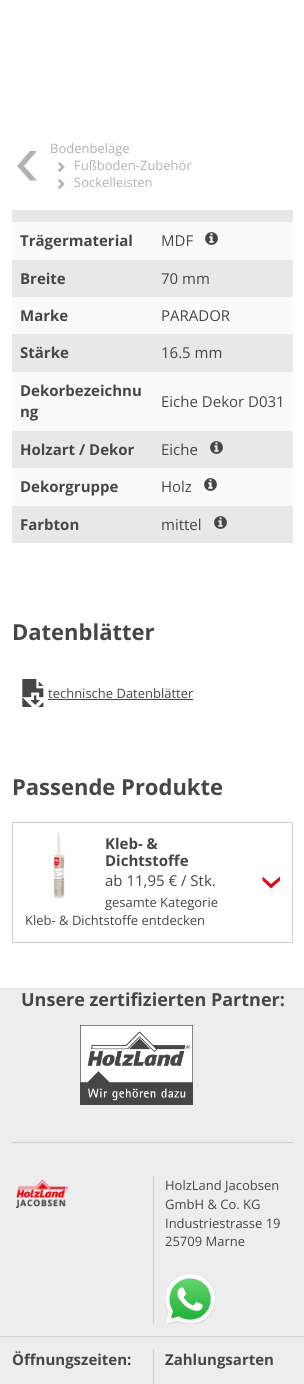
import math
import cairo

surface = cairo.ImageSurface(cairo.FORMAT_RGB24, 304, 1384)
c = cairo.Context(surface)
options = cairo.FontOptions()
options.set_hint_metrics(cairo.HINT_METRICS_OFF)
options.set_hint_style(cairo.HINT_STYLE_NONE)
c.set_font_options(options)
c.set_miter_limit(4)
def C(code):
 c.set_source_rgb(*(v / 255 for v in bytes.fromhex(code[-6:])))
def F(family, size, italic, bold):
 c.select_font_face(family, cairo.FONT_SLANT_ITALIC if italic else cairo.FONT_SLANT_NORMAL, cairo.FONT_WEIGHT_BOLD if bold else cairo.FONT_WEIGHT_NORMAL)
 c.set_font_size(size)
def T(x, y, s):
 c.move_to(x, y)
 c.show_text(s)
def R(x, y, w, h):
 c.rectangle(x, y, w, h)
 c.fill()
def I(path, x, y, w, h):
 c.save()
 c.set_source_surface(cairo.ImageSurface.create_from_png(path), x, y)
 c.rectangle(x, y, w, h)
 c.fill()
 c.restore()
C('ffffff')
c.paint()
C('b2b2b2')
c.new_path()
c.move_to(24,166)
c.line_to(37,180.5)
c.line_to(30,180.5)
c.line_to(17,166)
c.line_to(30,151)
c.line_to(37,151)
c.close_path()
c.fill()
F('Open Sans',13,0,0)
T(50,153,'Bodenbeläge')
I('1.png',58,162,7,10)
T(74,170,'Fußboden-Zubehör')
I('1.png',58,179,7,10)
T(74,187,'Sockelleisten')
C('e8e8e8')
R(12,210,281,12)
C('fafafa')
R(12,222,281,38)
F('Open Sans',15,0,1)
C('464646')
T(20,246,'Trägermaterial')
F('Open Sans',15,0,0)
T(161,246,'MDF')
I('2.png',205,232,13,13)
C('e8e8e8')
R(12,260,281,37)
F('Open Sans',15,0,1)
C('464646')
T(20,284,'Breite')
F('Open Sans',15,0,0)
T(161,284,'70 mm')
C('fafafa')
R(12,297,281,37)
F('Open Sans',15,0,1)
C('464646')
T(20,321,'Marke')
F('Open Sans',15,0,0)
T(161,321,'PARADOR')
C('e8e8e8')
R(12,334,281,38)
F('Open Sans',15,0,1)
C('464646')
T(20,358,'Stärke')
F('Open Sans',15,0,0)
T(161,358,'16.5 mm')
C('fafafa')
R(12,372,281,59)
F('Open Sans',15,0,1)
C('464646')
T(20,396,'Dekorbezeichnu')
T(20,417,'ng')
F('Open Sans',15,0,0)
T(161,407,'Eiche Dekor D031')
C('e8e8e8')
R(12,431,281,37)
F('Open Sans',15,0,1)
C('464646')
T(20,455,'Holzart / Dekor')
F('Open Sans',15,0,0)
T(161,455,'Eiche')
I('3.png',210,441,13,13)
C('fafafa')
R(12,468,281,38)
F('Open Sans',15,0,1)
C('464646')
T(20,492,'Dekorgruppe')
F('Open Sans',15,0,0)
T(161,492,'Holz')
I('2.png',204,478,13,13)
C('e8e8e8')
R(12,506,281,37)
F('Open Sans',15,0,1)
C('464646')
T(20,530,'Farbton')
F('Open Sans',15,0,0)
T(161,530,'mittel')
I('3.png',214,516,13,13)
F('Open Sans',22,0,1)
T(12,640,'Datenblätter')
I('4.png',22,679,22,28)
F('Open Sans',13,0,0)
T(48,698,'technische Datenblätter')
R(48,699,145,1)
F('Open Sans',22,0,1)
T(12,795,'Passende Produkte')
c.rectangle(12.5,822.5,280,120)
C('d1d1d1')
c.set_line_width(1)
c.stroke()
I('5.png',53,832,12,67)
F('Open Sans',15,0,1)
C('464646')
T(105,849,'Kleb- &')
T(105,866,'Dichtstoffe')
F('Open Sans',15,0,0)
T(105,886,'ab 11,95 € / Stk.')
F('Open Sans',13,0,0)
T(105,907,'gesamte Kategorie')
T(25,925,'Kleb- & Dichtstoffe entdecken')
C('e50615')
c.new_path()
c.move_to(280,876.5)
c.line_to(280,880.5)
c.line_to(271,888.5)
c.line_to(262.5,880.5)
c.line_to(262.5,876.5)
c.line_to(271,884)
c.close_path()
c.fill()
C('ededed')
R(0,990,304,394)
C('e8e8e8')
R(0,988,304,2)
F('Open Sans',18,0,1)
C('464646')
T(21,1006,'Unsere zertifizierten Partner:')
I('6.png',80,1025,113,80)
C('d1d1d1')
R(12,1142,281,1)
I('7.png',16,1180,52,28)
R(153,1176,1,148)
F('Open Sans',13,0,0)
C('464646')
T(165,1190,'HolzLand Jacobsen')
T(165,1209,'GmbH & Co. KG')
T(165,1228,'Industriestrasse 19')
T(165,1246,'25709 Marne')
I('8.png',165,1274,50,50)
C('d1d1d1')
R(0,1336,304,1)
F('Open Sans',15,0,1)
C('464646')
T(12,1365,'Öffnungszeiten:')
C('d1d1d1')
R(153,1349,1,35)
C('464646')
T(165,1365,'Zahlungsarten')
surface.write_to_png('o.png')
